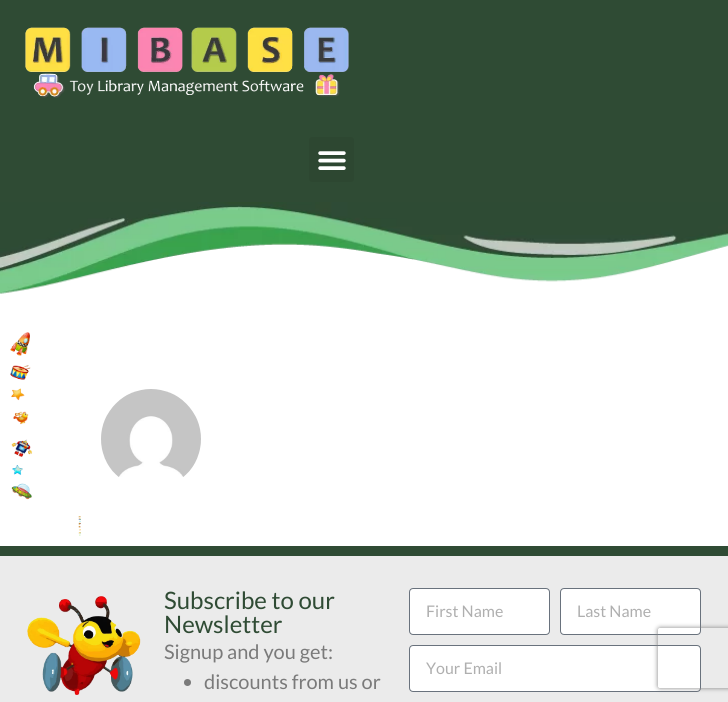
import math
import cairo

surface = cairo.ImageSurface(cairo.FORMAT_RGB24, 728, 702)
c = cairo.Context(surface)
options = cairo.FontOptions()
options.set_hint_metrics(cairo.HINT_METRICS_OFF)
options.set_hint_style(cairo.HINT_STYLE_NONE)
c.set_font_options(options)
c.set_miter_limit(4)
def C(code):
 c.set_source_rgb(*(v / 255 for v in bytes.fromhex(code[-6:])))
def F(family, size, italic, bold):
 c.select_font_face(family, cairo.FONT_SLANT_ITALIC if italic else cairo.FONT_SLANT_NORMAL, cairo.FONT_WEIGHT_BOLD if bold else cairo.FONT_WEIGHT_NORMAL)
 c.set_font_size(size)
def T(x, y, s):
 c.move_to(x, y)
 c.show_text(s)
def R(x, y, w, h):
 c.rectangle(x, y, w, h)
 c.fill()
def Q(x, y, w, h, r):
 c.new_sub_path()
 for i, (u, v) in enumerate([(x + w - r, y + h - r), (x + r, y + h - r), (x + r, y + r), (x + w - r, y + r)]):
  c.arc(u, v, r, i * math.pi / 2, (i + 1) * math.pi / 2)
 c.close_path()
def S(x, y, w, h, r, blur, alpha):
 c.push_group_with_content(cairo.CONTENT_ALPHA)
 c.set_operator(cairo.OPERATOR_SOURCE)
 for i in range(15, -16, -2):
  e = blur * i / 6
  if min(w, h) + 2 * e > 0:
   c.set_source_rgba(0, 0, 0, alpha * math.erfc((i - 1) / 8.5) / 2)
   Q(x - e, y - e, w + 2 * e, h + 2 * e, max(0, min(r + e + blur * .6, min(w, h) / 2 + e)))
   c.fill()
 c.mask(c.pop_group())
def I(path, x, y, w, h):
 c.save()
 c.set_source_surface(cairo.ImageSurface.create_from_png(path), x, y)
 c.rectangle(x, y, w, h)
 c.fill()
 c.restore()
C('ffffff')
c.paint()
C('2f4b34')
R(0,0,728,202)
I('1.png',25,27,324,71)
C('2d4731')
Q(309,137,45,45,3)
c.fill()
I('2.png',318,151,28,19)
I('3.png',0,202,728,92)
I('4.png',10,332,23,168)
I('5.png',101,389,100,88)
I('6.png',78,516,3,20)
C('ebebeb')
R(0,556,728,146)
C('2f4b34')
R(0,546,728,10)
I('7.png',27,596,114,99)
F('Lato',24,0,0)
T(164,609,'Subscribe to our')
T(164,633,'Newsletter')
F('Lato',20,0,0)
C('7a7a7a')
T(164,659,'Signup and you get:')
c.new_path()
c.arc(187.5,682.5,3.5,0,2 * math.pi)
c.fill()
T(204,689,'discounts from us or')
C('ffffff')
Q(409.5,588.5,140,46,3.5)
c.fill_preserve()
C('69727d')
c.set_line_width(1)
c.stroke()
F('Lato',16,0,0)
C('afafaf')
T(426,617,'First Name')
C('ffffff')
Q(560.5,588.5,140,46,3.5)
c.fill_preserve()
C('69727d')
c.stroke()
C('afafaf')
T(577,617,'Last Name')
C('ffffff')
Q(409.5,645.5,291,46,3.5)
c.fill_preserve()
C('69727d')
c.stroke()
C('afafaf')
T(426,674,'Your Email')
c.save()
c.set_fill_rule(cairo.FILL_RULE_EVEN_ODD)
c.new_path()
c.move_to(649,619)
c.line_to(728,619)
c.line_to(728,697)
c.line_to(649,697)
c.close_path()
c.move_to(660,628)
c.line_to(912,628)
c.curve_to(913,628,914,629,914,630)
c.line_to(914,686)
c.curve_to(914,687,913,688,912,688)
c.line_to(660,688)
c.curve_to(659,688,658,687,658,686)
c.line_to(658,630)
c.curve_to(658,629,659,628,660,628)
c.close_path()
c.clip()
C('808080')
S(658,628,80,60,2,2.5,1)
c.restore()
surface.write_to_png('o.png')
